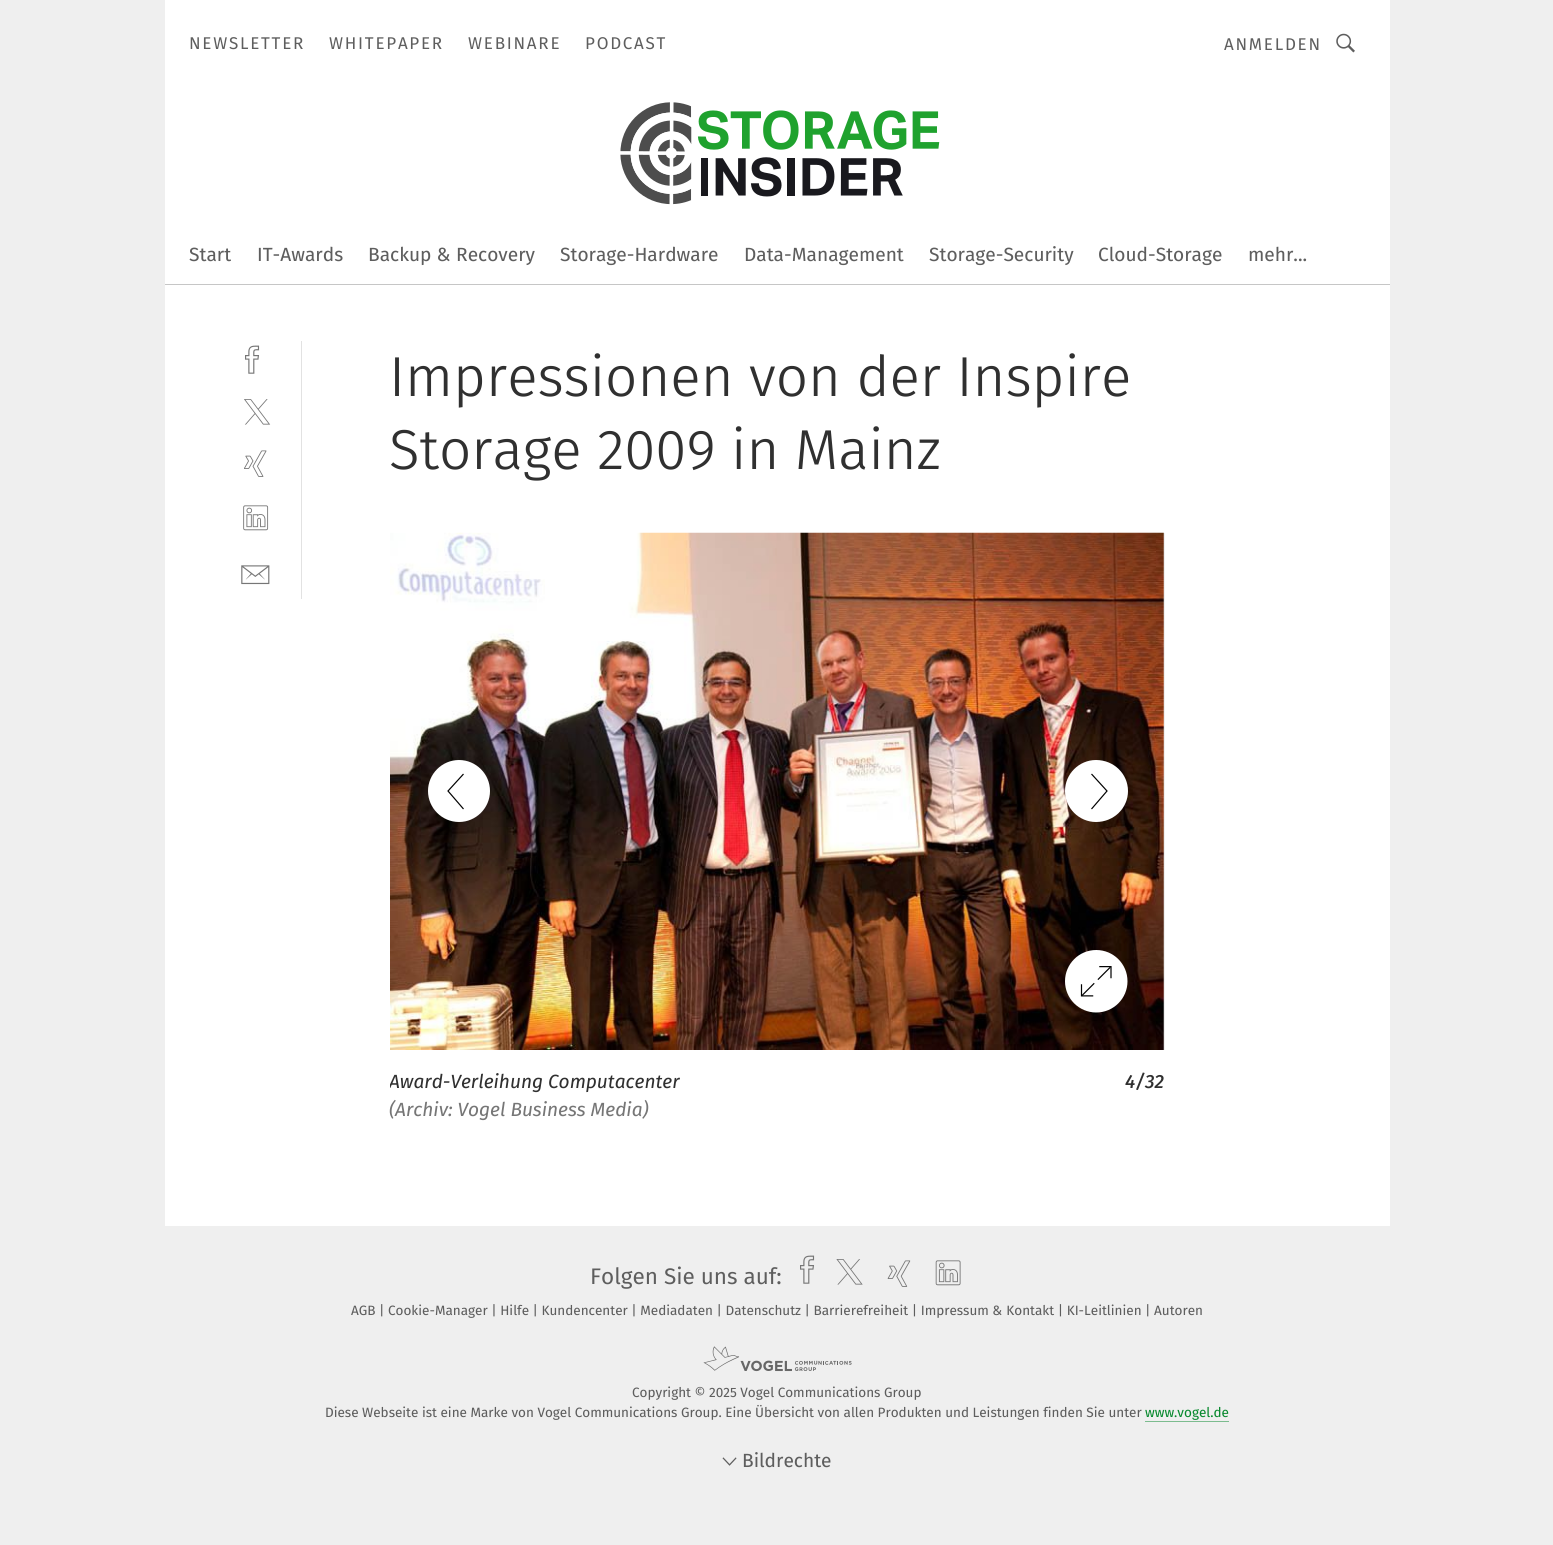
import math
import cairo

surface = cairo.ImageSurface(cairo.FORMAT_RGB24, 1553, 1545)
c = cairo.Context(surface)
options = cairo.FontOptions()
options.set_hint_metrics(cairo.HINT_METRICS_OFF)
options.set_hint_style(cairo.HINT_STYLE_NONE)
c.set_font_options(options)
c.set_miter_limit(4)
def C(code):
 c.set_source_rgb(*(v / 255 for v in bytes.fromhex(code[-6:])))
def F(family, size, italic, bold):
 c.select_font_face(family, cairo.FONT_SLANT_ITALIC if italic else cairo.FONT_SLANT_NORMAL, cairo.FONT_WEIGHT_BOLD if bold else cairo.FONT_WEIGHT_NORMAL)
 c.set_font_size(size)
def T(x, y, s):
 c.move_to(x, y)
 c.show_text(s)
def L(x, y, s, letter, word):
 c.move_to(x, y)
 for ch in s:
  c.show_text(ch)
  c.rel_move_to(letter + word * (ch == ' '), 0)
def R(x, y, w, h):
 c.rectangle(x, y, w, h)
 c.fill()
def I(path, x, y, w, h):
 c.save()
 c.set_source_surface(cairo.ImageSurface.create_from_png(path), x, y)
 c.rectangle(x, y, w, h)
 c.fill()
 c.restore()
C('efefef')
c.paint()
C('ffffff')
R(165,0,1225,1226)
C('c6c6c6')
R(165,284,1225,1)
F('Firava',17,0,0)
C('5e5e5e')
L(189,49,'NEWSLETTER',1.75,0)
L(329,49,'WHITEPAPER',1.75,0)
L(468,49,'WEBINARE',1.75,0)
L(585,49,'PODCAST',1.75,0)
L(1224,50,'ANMELDEN',1.75,0)
I('1.png',1336,33,19,20)
I('2.png',620,102,320,103)
F('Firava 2',19.1,0,0)
T(189,261,'Start')
T(257,261,'IT-Awards')
T(368,261,'Backup & Recovery')
T(560,261,'Storage-Hardware')
T(744,261,'Data-Management')
T(929,261,'Storage-Security')
T(1098,261,'Cloud-Storage')
T(1248,261,'mehr...')
C('e2e2e2')
R(301,341,1,258)
I('3.png',245,345,15,29)
I('4.png',244,399,27,26)
I('5.png',244,450,23,27)
I('6.png',243,505,26,26)
I('7.png',241,565,29,20)
F('Firava Light',56.25,0,0)
C('303030')
T(389,396,'Impressionen von der Inspire')
T(389,469,'Storage 2009 in Mainz')
C('efefef')
R(1163,533,2,517)
I('8.png',390,532,774,518)
C('ffffff')
c.new_path()
c.move_to(459,822)
c.curve_to(476,822,490,808,490,791)
c.curve_to(490,774,476,760,459,760)
c.curve_to(442,760,428,774,428,791)
c.curve_to(428,808,442,822,459,822)
c.fill()
c.new_path()
c.move_to(463.5,774)
c.line_to(448,791)
c.line_to(463.5,809)
C('000000')
c.set_line_width(1.2)
c.stroke()
C('ffffff')
c.new_path()
c.move_to(1096,760)
c.curve_to(1079,760,1065,774,1065,791)
c.curve_to(1065,808,1079,822,1096,822)
c.curve_to(1114,822,1128,808,1128,791)
c.curve_to(1128,774,1114,760,1096,760)
c.fill()
c.new_path()
c.move_to(1091.5,809)
c.line_to(1107,791)
c.line_to(1091.5,774)
C('000000')
c.stroke()
I('9.png',1065,950,63,63)
c.save()
c.rectangle(390,533,775,592)
c.clip()
F('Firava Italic',19.1,1,0)
C('303030')
T(389,1088,'Award-Verleihung Computacenter')
c.restore()
F('Firava Italic',19.1,1,0)
C('767676')
T(389,1116,'(Archiv: Vogel Business Media)')
F('Firava Italic Medium',19.1,1,0)
C('303030')
T(1125,1088,'4/32')
F('Firava',22.5,0,0)
C('5e5e5e')
T(590,1284,'Folgen Sie uns auf:')
I('10.png',800,1255,15,29)
I('11.png',836,1259,27,26)
I('12.png',887,1260,24,27)
I('13.png',935,1260,26,26)
F('Firava 2',13.5,0,0)
T(351,1315,'AGB | Cookie-Manager | Hilfe | Kundencenter | Mediadaten | Datenschutz | Barrierefreiheit | Impressum & Kontakt | KI-Leitlinien | Autoren')
I('14.png',703,1346,149,26)
T(632,1397,'Copyright © 2025 Vogel Communications Group')
T(325,1417,'Diese Webseite ist eine Marke von Vogel Communications Group. Eine Übersicht von allen Produkten und Leistungen finden Sie unter')
C('08892e')
T(1145,1417,'www.vogel.de')
C('7cbc8f')
R(1145,1421,84,1)
I('15.png',722,1457,15,9)
F('Firava 2',19.1,0,0)
C('5e5e5e')
T(742,1467,'Bildrechte')
surface.write_to_png('o.png')
